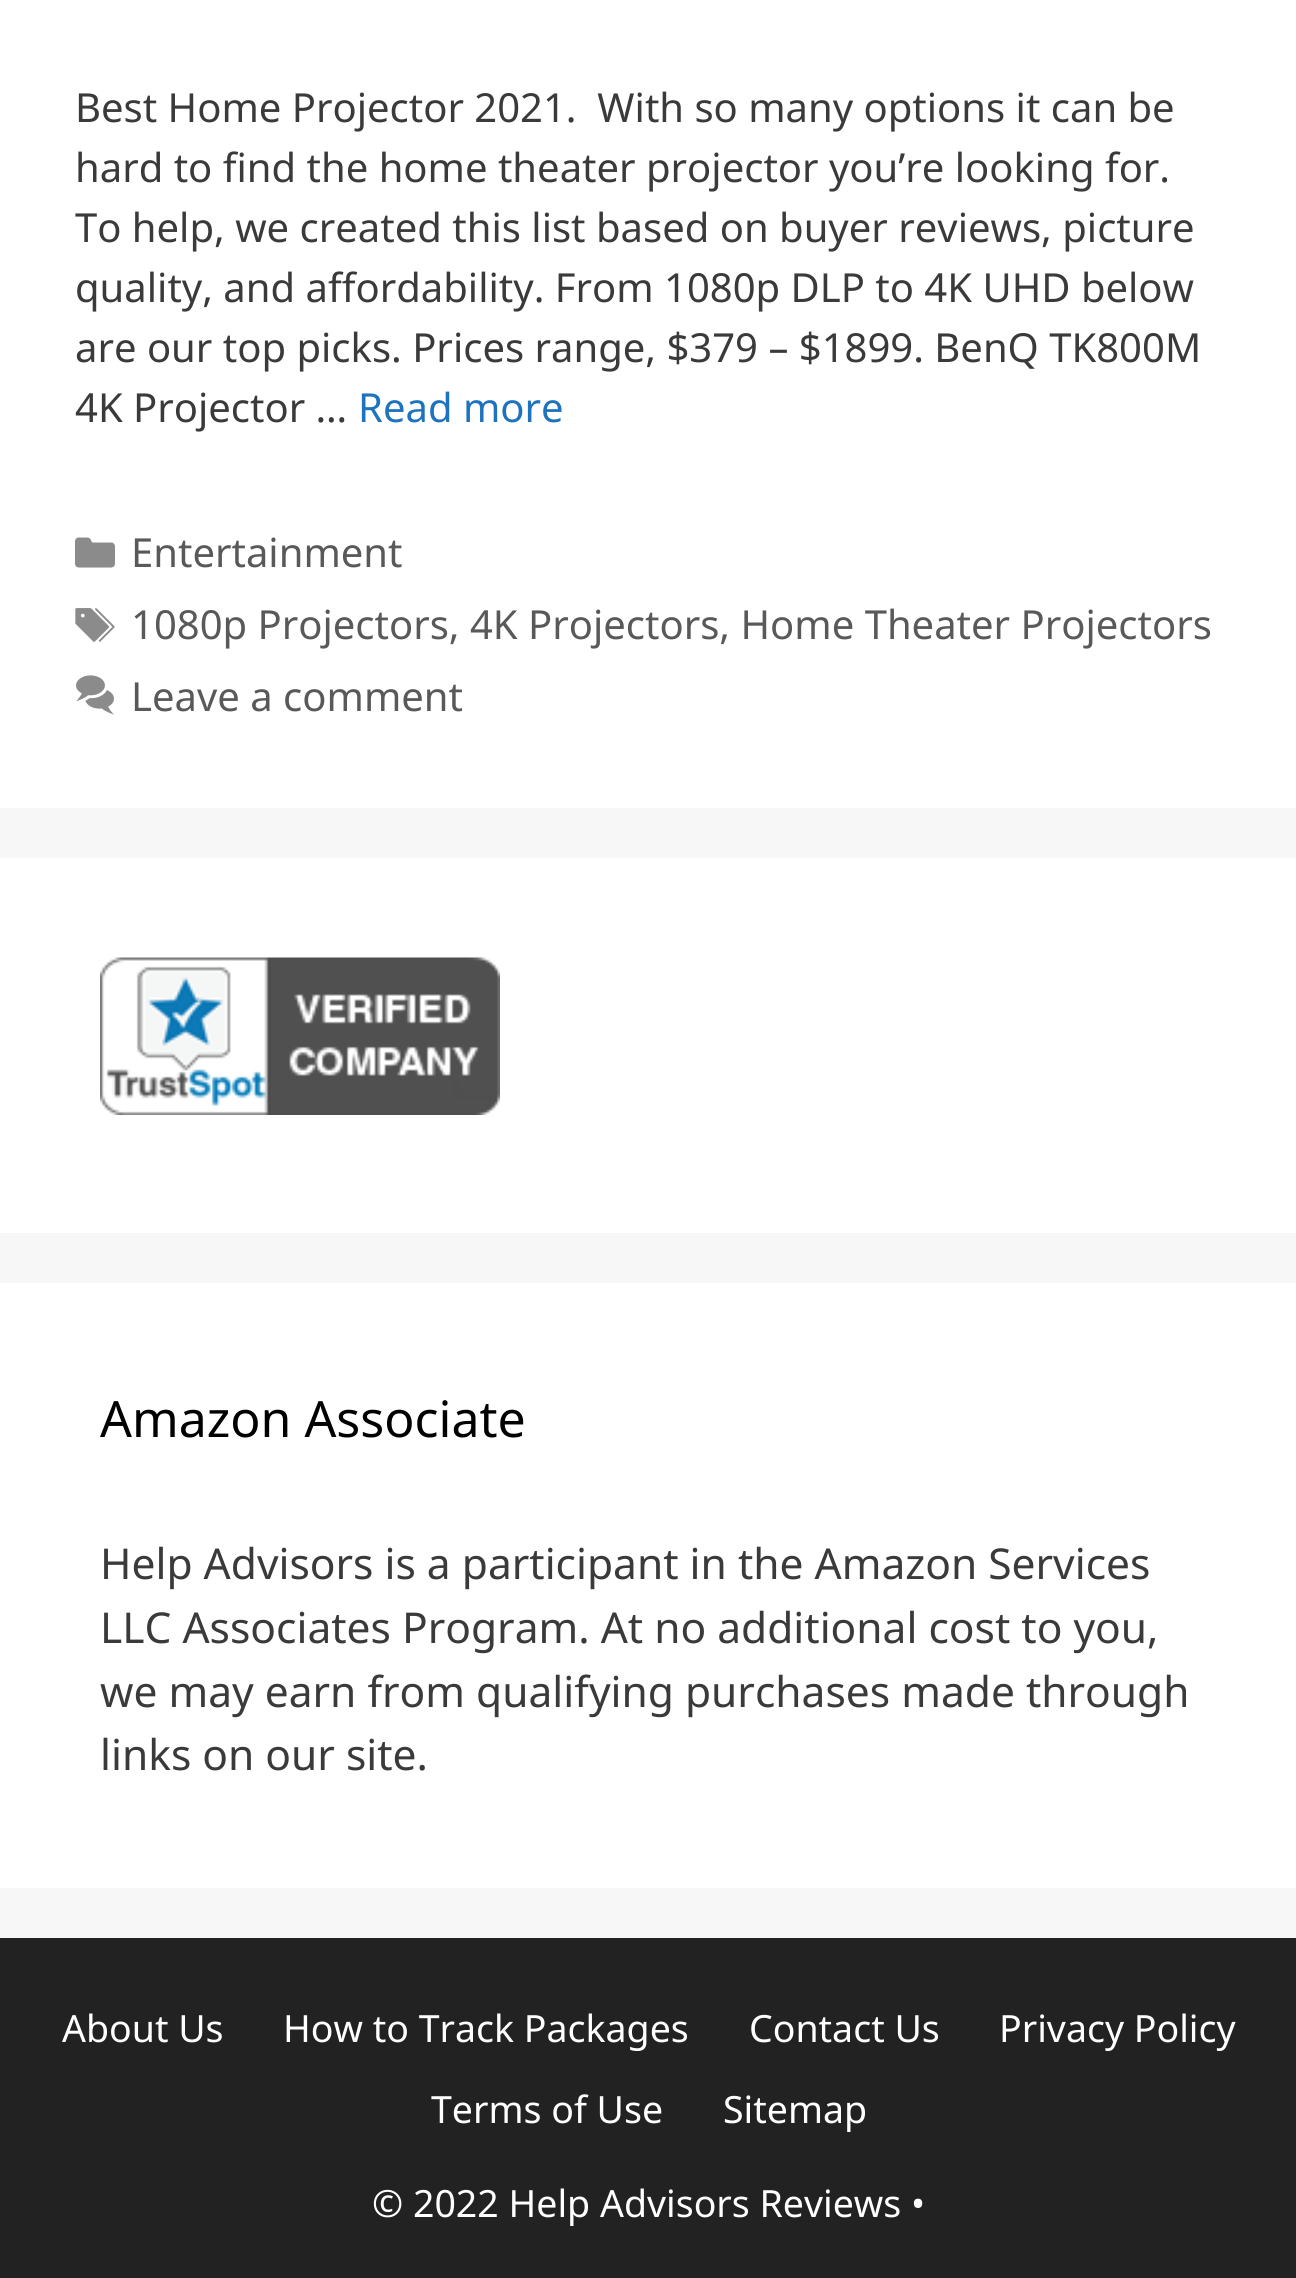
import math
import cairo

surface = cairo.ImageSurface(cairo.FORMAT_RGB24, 1296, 2278)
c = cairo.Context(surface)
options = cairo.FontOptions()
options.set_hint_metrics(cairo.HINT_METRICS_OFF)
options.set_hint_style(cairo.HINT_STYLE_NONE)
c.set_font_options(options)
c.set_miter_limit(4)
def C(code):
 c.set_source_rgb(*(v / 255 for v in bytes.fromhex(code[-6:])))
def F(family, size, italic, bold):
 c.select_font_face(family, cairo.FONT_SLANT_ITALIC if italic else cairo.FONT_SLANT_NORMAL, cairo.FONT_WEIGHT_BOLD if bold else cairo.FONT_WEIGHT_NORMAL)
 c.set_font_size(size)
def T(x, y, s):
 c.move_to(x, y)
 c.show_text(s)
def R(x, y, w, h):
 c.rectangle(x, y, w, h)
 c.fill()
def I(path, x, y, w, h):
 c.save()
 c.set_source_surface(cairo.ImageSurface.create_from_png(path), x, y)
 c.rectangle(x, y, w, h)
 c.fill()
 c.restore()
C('f7f7f7')
c.paint()
C('ffffff')
R(0,0,1296,808)
F('Noto Sans',40,0,0)
C('3a3a3a')
T(75,122,'Best Home Projector 2021.  With so many options it can be')
T(75,182,'hard to find the home theater projector you’re looking for.')
T(75,242,'To help, we created this list based on buyer reviews, picture')
T(75,302,'quality, and affordability. From 1080p DLP to 4K UHD below')
T(75,362,'are our top picks. Prices range, $379 – $1899. BenQ TK800M')
T(75,422,'4K Projector …')
C('1e73be')
T(358,422,'Read more')
I('1.png',75,537,40,31)
C('595959')
T(131,567,'Entertainment')
I('2.png',75,608,40,34)
T(131,639,'1080p Projectors, 4K Projectors, Home Theater Projectors')
I('3.png',76,675,38,40)
T(131,711,'Leave a comment')
C('ffffff')
R(0,858,1296,375)
I('4.png',100,957,400,158)
R(0,1283,1296,605)
F('Noto Sans',50,0,0)
C('000000')
T(100,1437,'Amazon Associate')
F('Noto Sans',42.5,0,0)
C('3a3a3a')
T(100,1579,'Help Advisors is a participant in the Amazon Services')
T(100,1643,'LLC Associates Program. At no additional cost to you,')
T(100,1707,'we may earn from qualifying purchases made through')
T(100,1770,'links on our site.')
C('222222')
R(0,1938,1296,340)
F('Noto Sans',37.5,0,0)
C('ffffff')
T(62,2042,'About Us')
T(283,2042,'How to Track Packages')
T(749,2042,'Contact Us')
T(999,2042,'Privacy Policy')
T(431,2123,'Terms of Use')
T(723,2123,'Sitemap')
T(372,2217,'© 2022 Help Advisors Reviews •')
surface.write_to_png('o.png')
